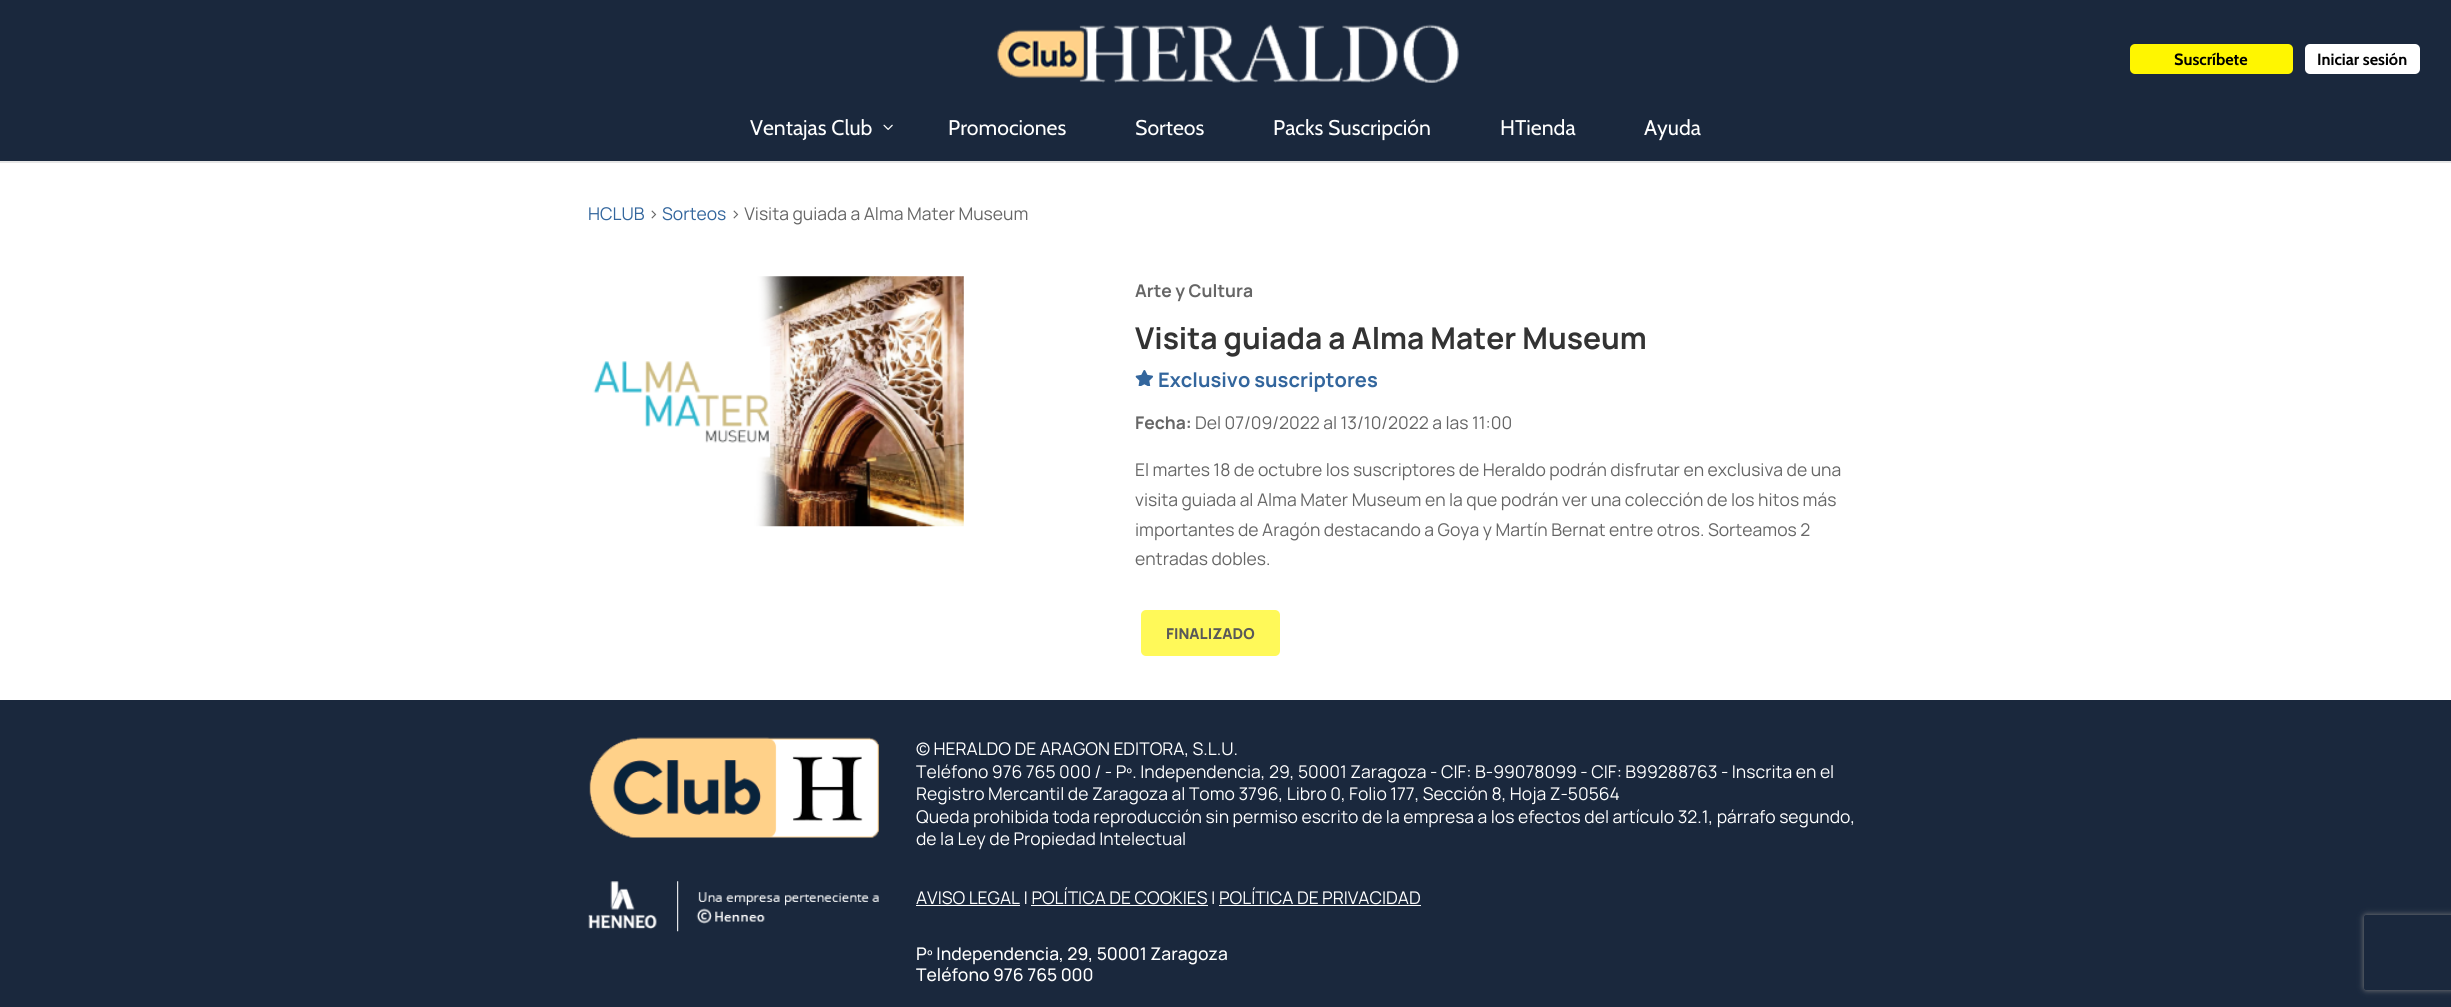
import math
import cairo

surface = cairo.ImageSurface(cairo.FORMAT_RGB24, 2451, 1007)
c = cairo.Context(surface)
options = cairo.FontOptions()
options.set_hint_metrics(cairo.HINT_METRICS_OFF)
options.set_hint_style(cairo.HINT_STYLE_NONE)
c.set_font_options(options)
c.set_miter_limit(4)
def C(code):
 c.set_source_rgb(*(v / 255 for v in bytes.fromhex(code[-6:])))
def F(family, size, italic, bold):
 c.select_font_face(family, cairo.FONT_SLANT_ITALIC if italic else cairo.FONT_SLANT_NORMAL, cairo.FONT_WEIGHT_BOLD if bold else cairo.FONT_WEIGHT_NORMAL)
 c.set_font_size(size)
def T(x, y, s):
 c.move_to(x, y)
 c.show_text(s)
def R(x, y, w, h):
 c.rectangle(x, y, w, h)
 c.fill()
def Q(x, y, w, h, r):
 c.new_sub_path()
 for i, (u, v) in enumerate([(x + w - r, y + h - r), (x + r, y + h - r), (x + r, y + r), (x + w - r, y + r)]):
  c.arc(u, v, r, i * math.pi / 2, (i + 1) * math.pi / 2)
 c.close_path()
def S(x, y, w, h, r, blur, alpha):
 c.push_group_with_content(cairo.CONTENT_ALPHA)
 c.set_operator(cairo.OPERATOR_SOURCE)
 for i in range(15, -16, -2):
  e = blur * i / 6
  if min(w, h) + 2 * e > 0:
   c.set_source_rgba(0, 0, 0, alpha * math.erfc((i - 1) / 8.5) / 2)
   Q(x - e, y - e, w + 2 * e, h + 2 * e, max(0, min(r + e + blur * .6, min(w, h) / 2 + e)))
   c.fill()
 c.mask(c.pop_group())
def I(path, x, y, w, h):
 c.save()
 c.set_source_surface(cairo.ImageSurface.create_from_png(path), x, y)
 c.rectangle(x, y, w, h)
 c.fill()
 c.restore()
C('ffffff')
c.paint()
C('e6e6e6')
R(0,161,2451,2)
C('1a283d')
R(0,0,2451,161)
I('1.png',997,24,462,59)
C('fff600')
Q(2130,44,163,30,5)
c.fill()
F('Cabin',16.25,0,1)
C('000000')
T(2174,65,'Suscríbete')
C('ffffff')
Q(2305,44,115,30,5)
c.fill()
C('000000')
T(2317,65,'Iniciar sesión')
F('Cabin',21.25,0,0)
C('ffffff')
T(750,135,'Ventajas Club')
I('2.png',883,124,10,6)
T(948,135,'Promociones')
T(1135,135,'Sorteos')
T(1273,135,'Packs Suscripción')
T(1500,135,'HTienda')
T(1644,135,'Ayuda')
F('Manrope',17.5,0,0)
C('33669d')
T(588,220,'HCLUB')
C('666666')
T(648,220,'>')
C('33669d')
T(662,220,'Sorteos')
C('666666')
T(730,220,'> Visita guiada a Alma Mater Museum')
I('3.png',593,276,371,251)
F('Manrope',17.5,0,1)
T(1135,297,'Arte y Cultura')
F('Manrope',30,0,1)
C('333333')
T(1135,349,'Visita guiada a Alma Mater Museum')
I('4.png',1135,370,19,16)
F('Manrope',20,0,1)
C('33669d')
T(1158,387,'Exclusivo suscriptores')
F('Manrope',17.5,0,1)
C('666666')
T(1135,429,'Fecha:')
F('Manrope',17.5,0,0)
T(1195,429,'Del 07/09/2022 al 13/10/2022 a las 11:00')
T(1135,476,'El martes 18 de octubre los suscriptores de Heraldo podrán disfrutar en exclusiva de una')
T(1135,506,'visita guiada al Alma Mater Museum en la que podrán ver una colección de los hitos más')
T(1135,536,'importantes de Aragón destacando a Goya y Martín Bernat entre otros. Sorteamos 2')
T(1135,565,'entradas dobles.')
C('fff959')
Q(1141,610,139,46,5)
c.fill()
F('Manrope ExtraBold',15,0,0)
C('595959')
T(1166,639,'FINALIZADO')
C('1a283d')
R(0,700,2451,307)
I('5.png',589,737,290,101)
F('Manrope',17.5,0,0)
C('ffffff')
T(916,755,'© HERALDO DE ARAGON EDITORA, S.L.U.')
T(916,778,'Teléfono 976 765 000 / - Pº. Independencia, 29, 50001 Zaragoza - CIF: B-99078099 - CIF: B99288763 - Inscrita en el')
T(916,800,'Registro Mercantil de Zaragoza al Tomo 3796, Libro 0, Folio 177, Sección 8, Hoja Z-50564')
T(916,823,'Queda prohibida toda reproducción sin permiso escrito de la empresa a los efectos del artículo 32.1, párrafo segundo,')
T(916,845,'de la Ley de Propiedad Intelectual')
I('6.png',588,881,291,51)
T(916,904,'AVISO LEGAL | POLÍTICA DE COOKIES | POLÍTICA DE PRIVACIDAD')
R(916,905,104,1)
R(1031,905,177,1)
R(1219,905,202,1)
F('Manrope Medium',17.5,0,0)
T(916,960,'Pº Independencia, 29, 50001 Zaragoza')
T(916,981,'Teléfono 976 765 000')
c.save()
c.set_fill_rule(cairo.FILL_RULE_EVEN_ODD)
c.new_path()
c.move_to(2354,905)
c.line_to(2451,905)
c.line_to(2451,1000)
c.line_to(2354,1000)
c.close_path()
c.move_to(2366.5,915)
c.line_to(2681.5,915)
c.curve_to(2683,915,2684,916,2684,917.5)
c.line_to(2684,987.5)
c.curve_to(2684,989,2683,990,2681.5,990)
c.line_to(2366.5,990)
c.curve_to(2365,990,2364,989,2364,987.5)
c.line_to(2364,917.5)
c.curve_to(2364,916,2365,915,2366.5,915)
c.close_path()
c.clip()
C('808080')
S(2364,915,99,75,2.5,3,1)
c.restore()
surface.write_to_png('o.png')
